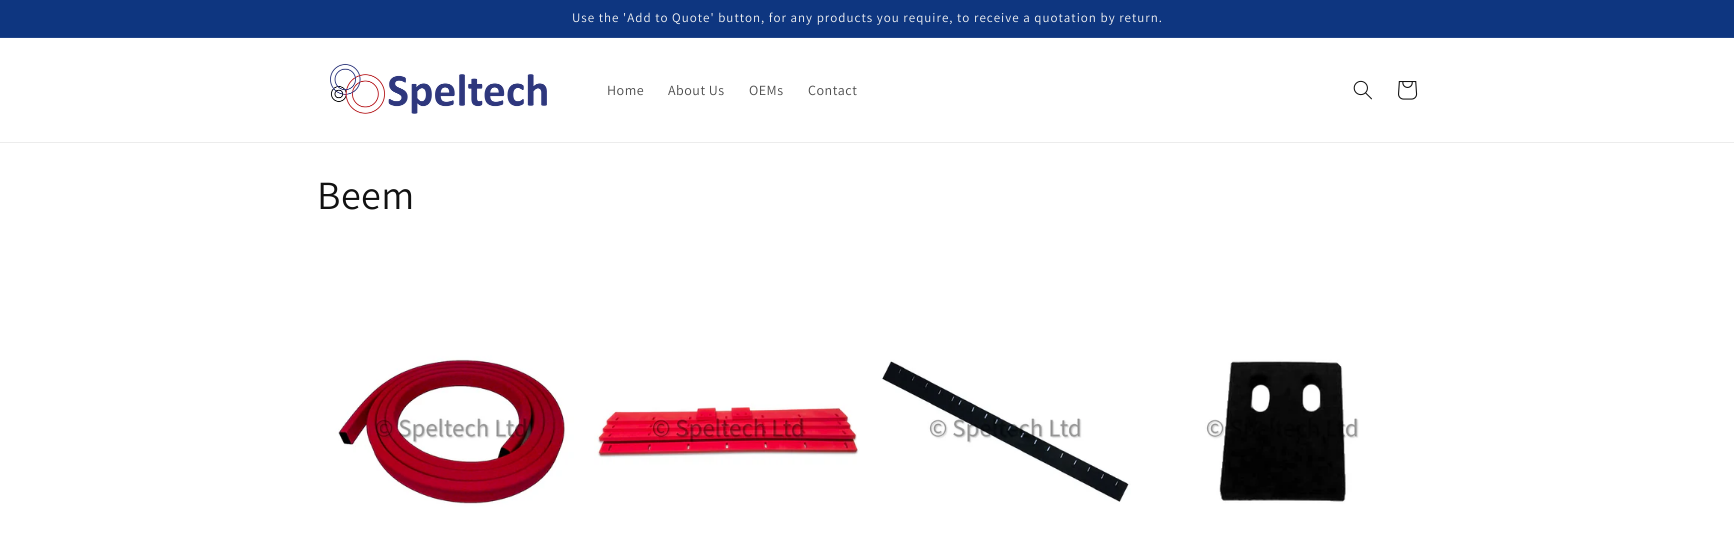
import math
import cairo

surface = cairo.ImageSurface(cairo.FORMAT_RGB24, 1734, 551)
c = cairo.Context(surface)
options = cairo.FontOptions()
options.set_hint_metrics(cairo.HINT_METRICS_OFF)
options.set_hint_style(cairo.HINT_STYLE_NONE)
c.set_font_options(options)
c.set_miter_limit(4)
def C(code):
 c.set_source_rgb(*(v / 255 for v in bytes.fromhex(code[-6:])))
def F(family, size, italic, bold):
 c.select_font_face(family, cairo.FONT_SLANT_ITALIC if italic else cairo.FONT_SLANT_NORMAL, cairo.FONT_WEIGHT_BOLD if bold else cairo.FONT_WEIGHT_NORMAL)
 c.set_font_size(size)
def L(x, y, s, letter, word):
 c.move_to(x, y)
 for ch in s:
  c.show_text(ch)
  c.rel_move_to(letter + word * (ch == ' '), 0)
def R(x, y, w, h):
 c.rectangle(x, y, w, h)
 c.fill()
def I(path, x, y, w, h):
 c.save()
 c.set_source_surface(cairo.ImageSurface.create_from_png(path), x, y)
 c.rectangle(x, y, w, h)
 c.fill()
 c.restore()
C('ffffff')
c.paint()
C('0e3680')
R(0,0,1734,37)
C('204589')
R(0,37,1734,1)
F('Assistant',13,0,0)
C('f3f3f3')
L(572,22,'Use the \'Add to Quote\' button, for any products you require, to receive a quotation by return.',1,0)
C('ececec')
R(0,142,1734,1)
I('1.png',330,63,217,51)
F('Assistant',14,0,0)
C('4d4d4d')
L(607,95,'Home',.5,0)
L(668,95,'About Us',.5,0)
L(749,95,'OEMs',.5,0)
L(808,95,'Contact',.5,0)
I('2.png',1353,80,19,20)
I('3.png',1398,81,20,19)
F('Assistant',40,0,0)
C('121212')
L(317,209,'Beem',.5,0)
I('4.png',317,297,269,254)
I('5.png',594,297,269,254)
I('6.png',871,297,269,254)
I('7.png',1148,297,269,254)
surface.write_to_png('o.png')
